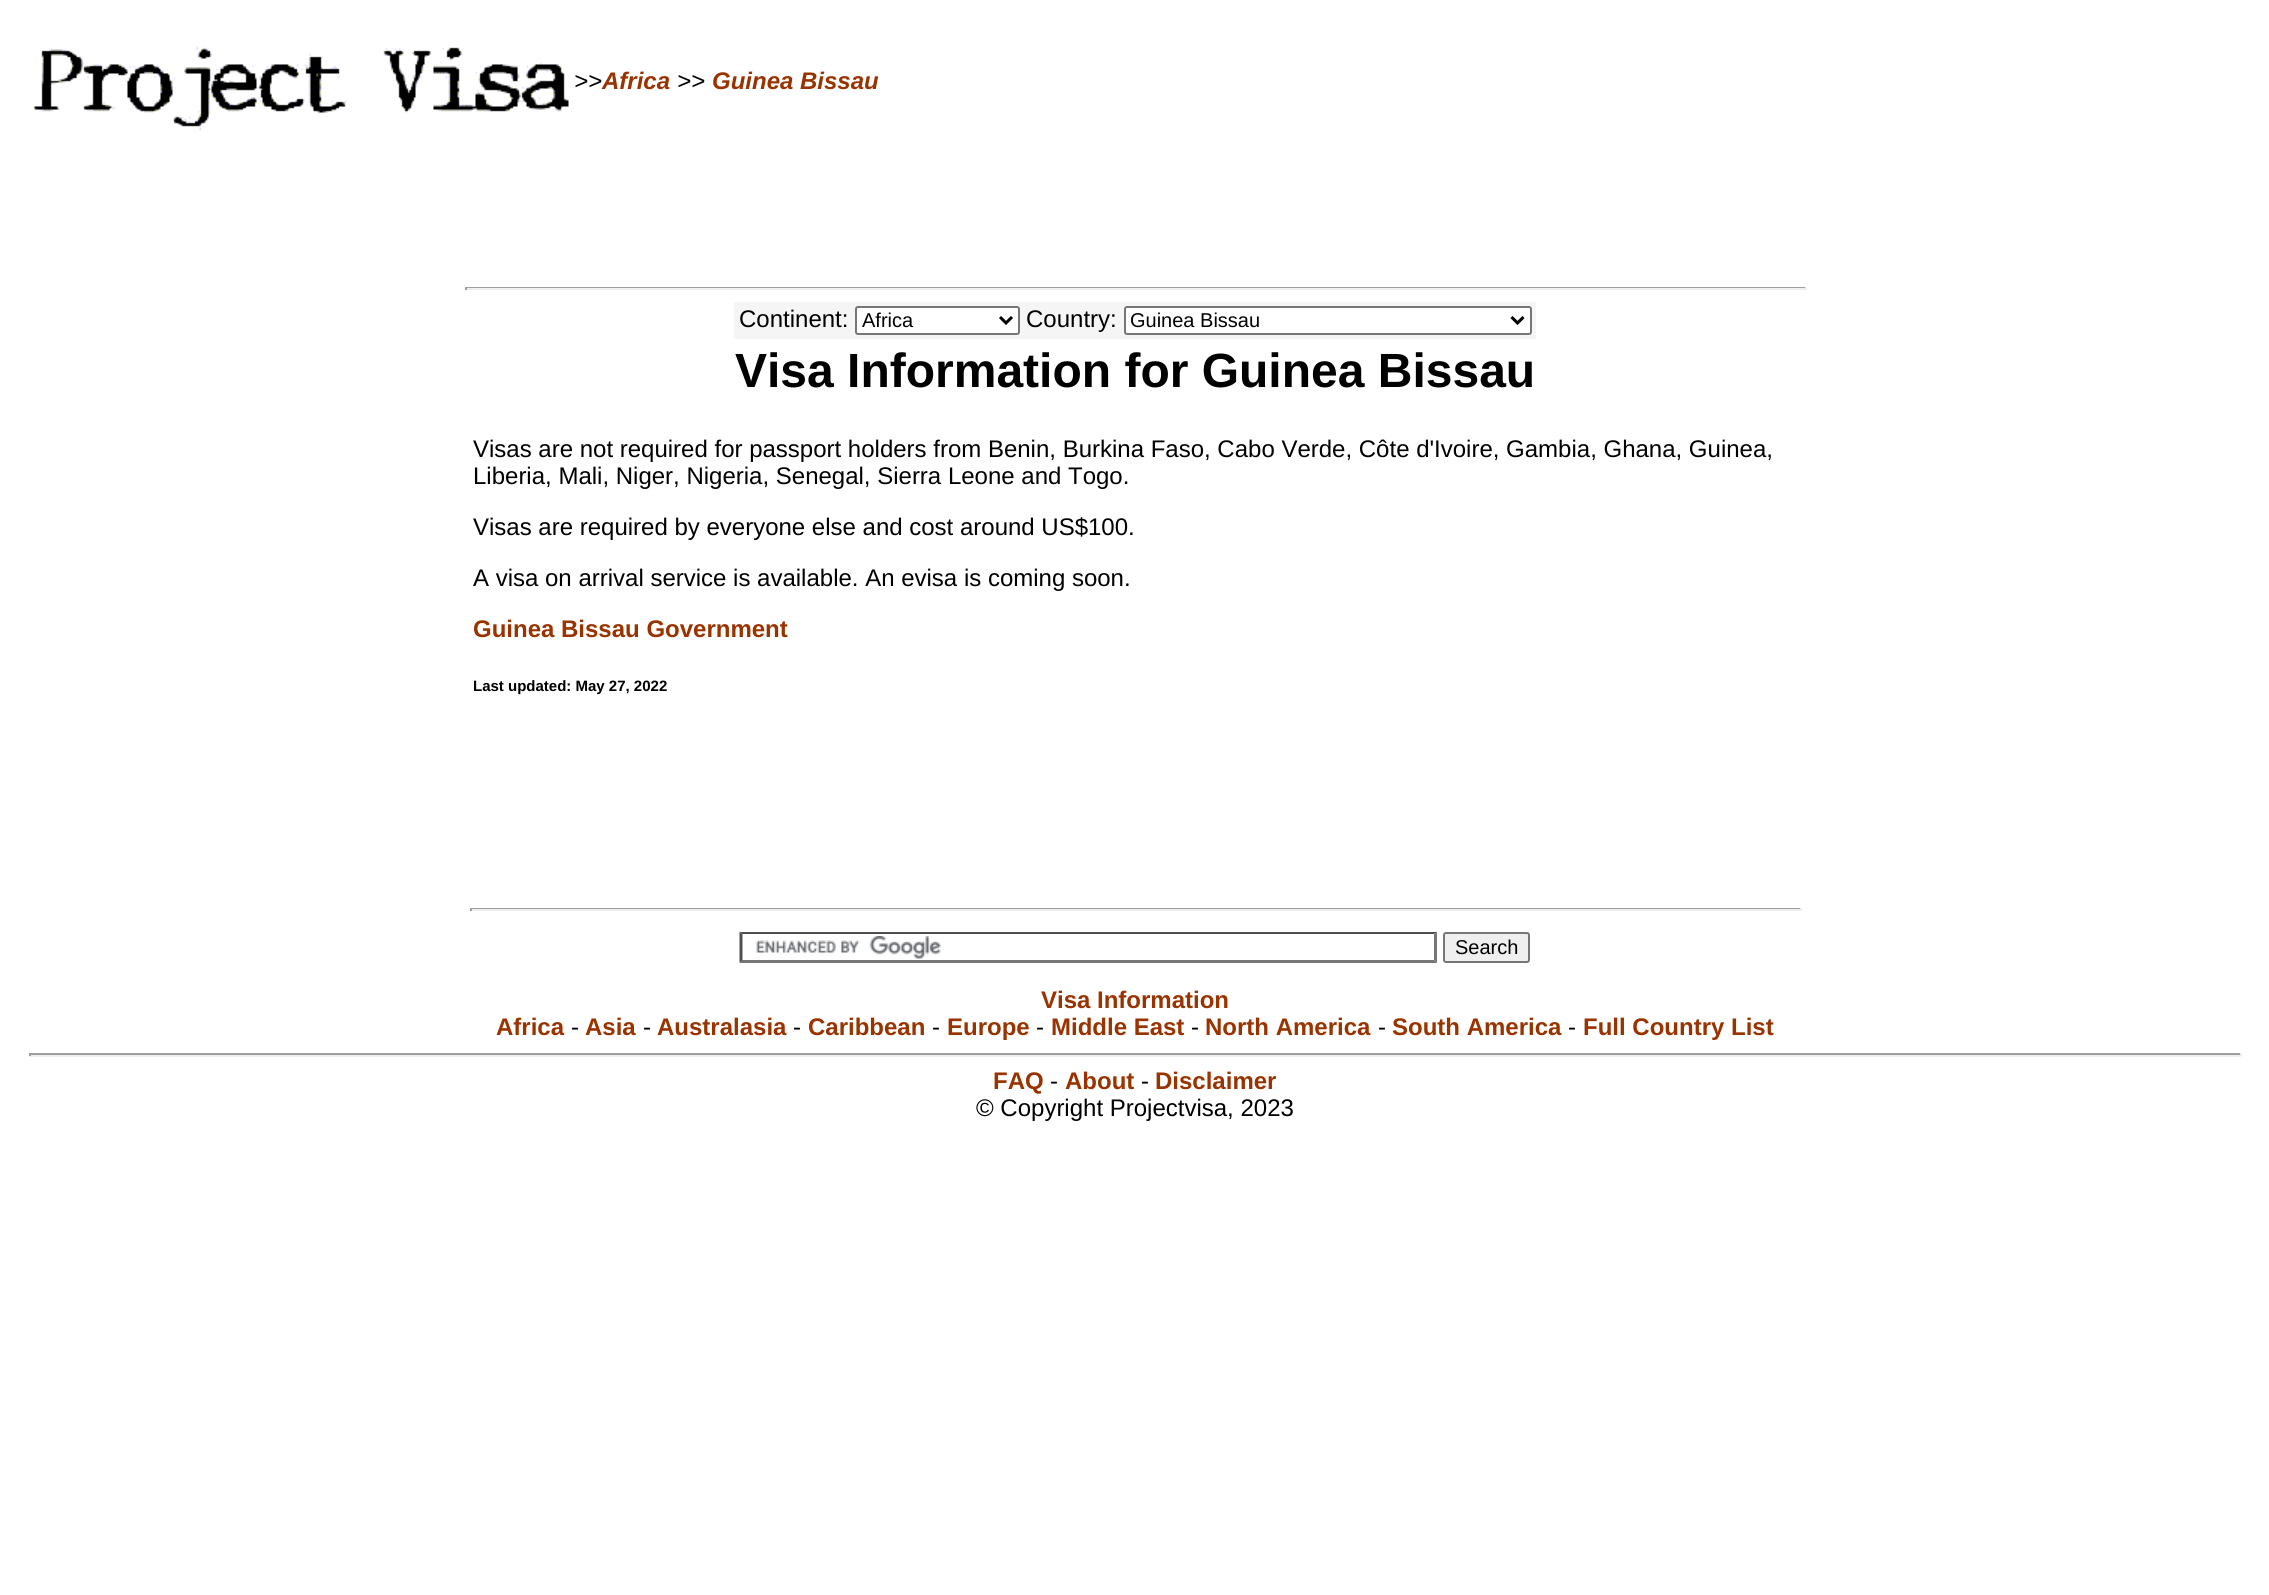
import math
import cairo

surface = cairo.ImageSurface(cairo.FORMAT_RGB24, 2269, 1595)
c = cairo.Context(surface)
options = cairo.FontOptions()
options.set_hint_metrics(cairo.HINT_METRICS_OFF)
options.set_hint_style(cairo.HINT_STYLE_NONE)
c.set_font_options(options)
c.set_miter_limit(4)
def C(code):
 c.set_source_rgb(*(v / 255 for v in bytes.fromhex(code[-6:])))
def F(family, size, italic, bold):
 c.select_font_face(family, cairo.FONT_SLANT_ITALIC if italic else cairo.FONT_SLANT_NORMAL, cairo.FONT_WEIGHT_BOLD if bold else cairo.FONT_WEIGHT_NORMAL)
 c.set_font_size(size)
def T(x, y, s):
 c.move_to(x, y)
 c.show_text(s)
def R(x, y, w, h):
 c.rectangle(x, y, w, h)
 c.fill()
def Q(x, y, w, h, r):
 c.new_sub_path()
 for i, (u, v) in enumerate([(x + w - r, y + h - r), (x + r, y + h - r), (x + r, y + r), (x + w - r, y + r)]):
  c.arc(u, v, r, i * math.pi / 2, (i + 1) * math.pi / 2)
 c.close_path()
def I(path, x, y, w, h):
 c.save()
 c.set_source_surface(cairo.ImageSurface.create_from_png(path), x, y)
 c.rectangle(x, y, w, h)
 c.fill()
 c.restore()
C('ffffff')
c.paint()
I('1.png',34,46,535,85)
F('Liberation Sans',24,1,0)
C('000000')
T(574,89,'>>')
F('Liberation Sans',24,1,1)
C('993300')
T(602,89,'Africa')
F('Liberation Sans',24,1,0)
C('000000')
T(677,89,'>>')
F('Liberation Sans',24,1,1)
C('993300')
T(712,89,'Guinea Bissau')
C('9f9f9f')
R(465,287,1341,1)
C('eeeeee')
R(1805,287,2,3)
R(465,288,1341,2)
C('9f9f9f')
R(465,287,2,3)
C('f5f5f5')
R(734,302,802,37)
F('Liberation Sans',24,0,0)
C('000000')
T(739,327,'Continent:')
C('ffffff')
Q(856,307,163,27,2)
c.fill_preserve()
C('767676')
c.stroke()
c.new_path()
c.move_to(1000,317)
c.line_to(1006,323)
c.line_to(1012,317)
C('000000')
c.set_line_width(3)
c.stroke()
F('Liberation Sans',20,0,0)
T(862,327,'Africa')
F('Liberation Sans',24,0,0)
T(1026,327,'Country:')
C('ffffff')
Q(1125,307,406,27,2)
c.fill_preserve()
C('767676')
c.set_line_width(2)
c.stroke()
c.new_path()
c.move_to(1511.5,317)
c.line_to(1517.5,323)
c.line_to(1523.5,317)
C('000000')
c.set_line_width(3)
c.stroke()
F('Liberation Sans',20,0,0)
T(1130,327,'Guinea Bissau')
F('Liberation Sans',48,0,1)
T(735,387,'Visa Information for Guinea Bissau')
F('Liberation Sans',24,0,0)
T(473,457,'Visas are not required for passport holders from Benin, Burkina Faso, Cabo Verde, Côte d\'Ivoire, Gambia, Ghana, Guinea,')
T(473,484,'Liberia, Mali, Niger, Nigeria, Senegal, Sierra Leone and Togo.')
T(473,535,'Visas are required by everyone else and cost around US$100.')
T(473,586,'A visa on arrival service is available. An evisa is coming soon.')
F('Liberation Sans',24,0,1)
C('993300')
T(473,637,'Guinea Bissau Government')
F('Liberation Sans',15,0,1)
C('000000')
T(473,691,'Last updated: May 27, 2022')
C('9f9f9f')
R(470,908,1332,1)
C('eeeeee')
R(1800,908,2,3)
R(470,909,1332,2)
C('9f9f9f')
R(470,908,2,3)
I('2.png',756,936,185,23)
C('4f4f4f')
c.new_path()
c.move_to(740,932)
c.line_to(1437,932)
c.line_to(1434,934)
c.line_to(742,934)
c.close_path()
c.fill()
C('767676')
c.new_path()
c.move_to(1437,931.5)
c.line_to(1437,963)
c.line_to(1434,960)
c.line_to(1434,934.5)
c.close_path()
c.fill()
c.new_path()
c.move_to(1437,963)
c.line_to(740,963)
c.line_to(742,960)
c.line_to(1434,960)
c.close_path()
c.fill()
C('4f4f4f')
c.new_path()
c.move_to(739.5,963)
c.line_to(739.5,931.5)
c.line_to(742.5,934.5)
c.line_to(742.5,960)
c.close_path()
c.fill()
C('efefef')
Q(1444,933,85,29,2)
c.fill_preserve()
C('767676')
c.set_line_width(2)
c.stroke()
F('Liberation Sans',20,0,0)
C('000000')
T(1455,954,'Search')
F('Liberation Sans',24,0,1)
C('993300')
T(1041,1008,'Visa Information')
T(496,1035,'Africa')
F('Liberation Sans',24,0,0)
C('000000')
T(571,1035,'-')
F('Liberation Sans',24,0,1)
C('993300')
T(585,1035,'Asia')
F('Liberation Sans',24,0,0)
C('000000')
T(643,1035,'-')
F('Liberation Sans',24,0,1)
C('993300')
T(657,1035,'Australasia')
F('Liberation Sans',24,0,0)
C('000000')
T(793,1035,'-')
F('Liberation Sans',24,0,1)
C('993300')
T(808,1035,'Caribbean')
F('Liberation Sans',24,0,0)
C('000000')
T(932,1035,'-')
F('Liberation Sans',24,0,1)
C('993300')
T(947,1035,'Europe')
F('Liberation Sans',24,0,0)
C('000000')
T(1036,1035,'-')
F('Liberation Sans',24,0,1)
C('993300')
T(1051,1035,'Middle East')
F('Liberation Sans',24,0,0)
C('000000')
T(1191,1035,'-')
F('Liberation Sans',24,0,1)
C('993300')
T(1205,1035,'North America')
F('Liberation Sans',24,0,0)
C('000000')
T(1378,1035,'-')
F('Liberation Sans',24,0,1)
C('993300')
T(1392,1035,'South America')
F('Liberation Sans',24,0,0)
C('000000')
T(1568,1035,'-')
F('Liberation Sans',24,0,1)
C('993300')
T(1583,1035,'Full Country List')
C('9f9f9f')
R(29,1053,2212,2)
C('eeeeee')
R(2240,1053,2,3)
R(29,1055,2212,2)
C('9f9f9f')
R(29,1053,2,3)
C('993300')
T(993,1089,'FAQ')
F('Liberation Sans',24,0,0)
C('000000')
T(1050,1089,'-')
F('Liberation Sans',24,0,1)
C('993300')
T(1065,1089,'About')
F('Liberation Sans',24,0,0)
C('000000')
T(1141,1089,'-')
F('Liberation Sans',24,0,1)
C('993300')
T(1155,1089,'Disclaimer')
F('Liberation Sans',24,0,0)
C('000000')
T(976,1116,'© Copyright Projectvisa, 2023')
surface.write_to_png('o.png')
